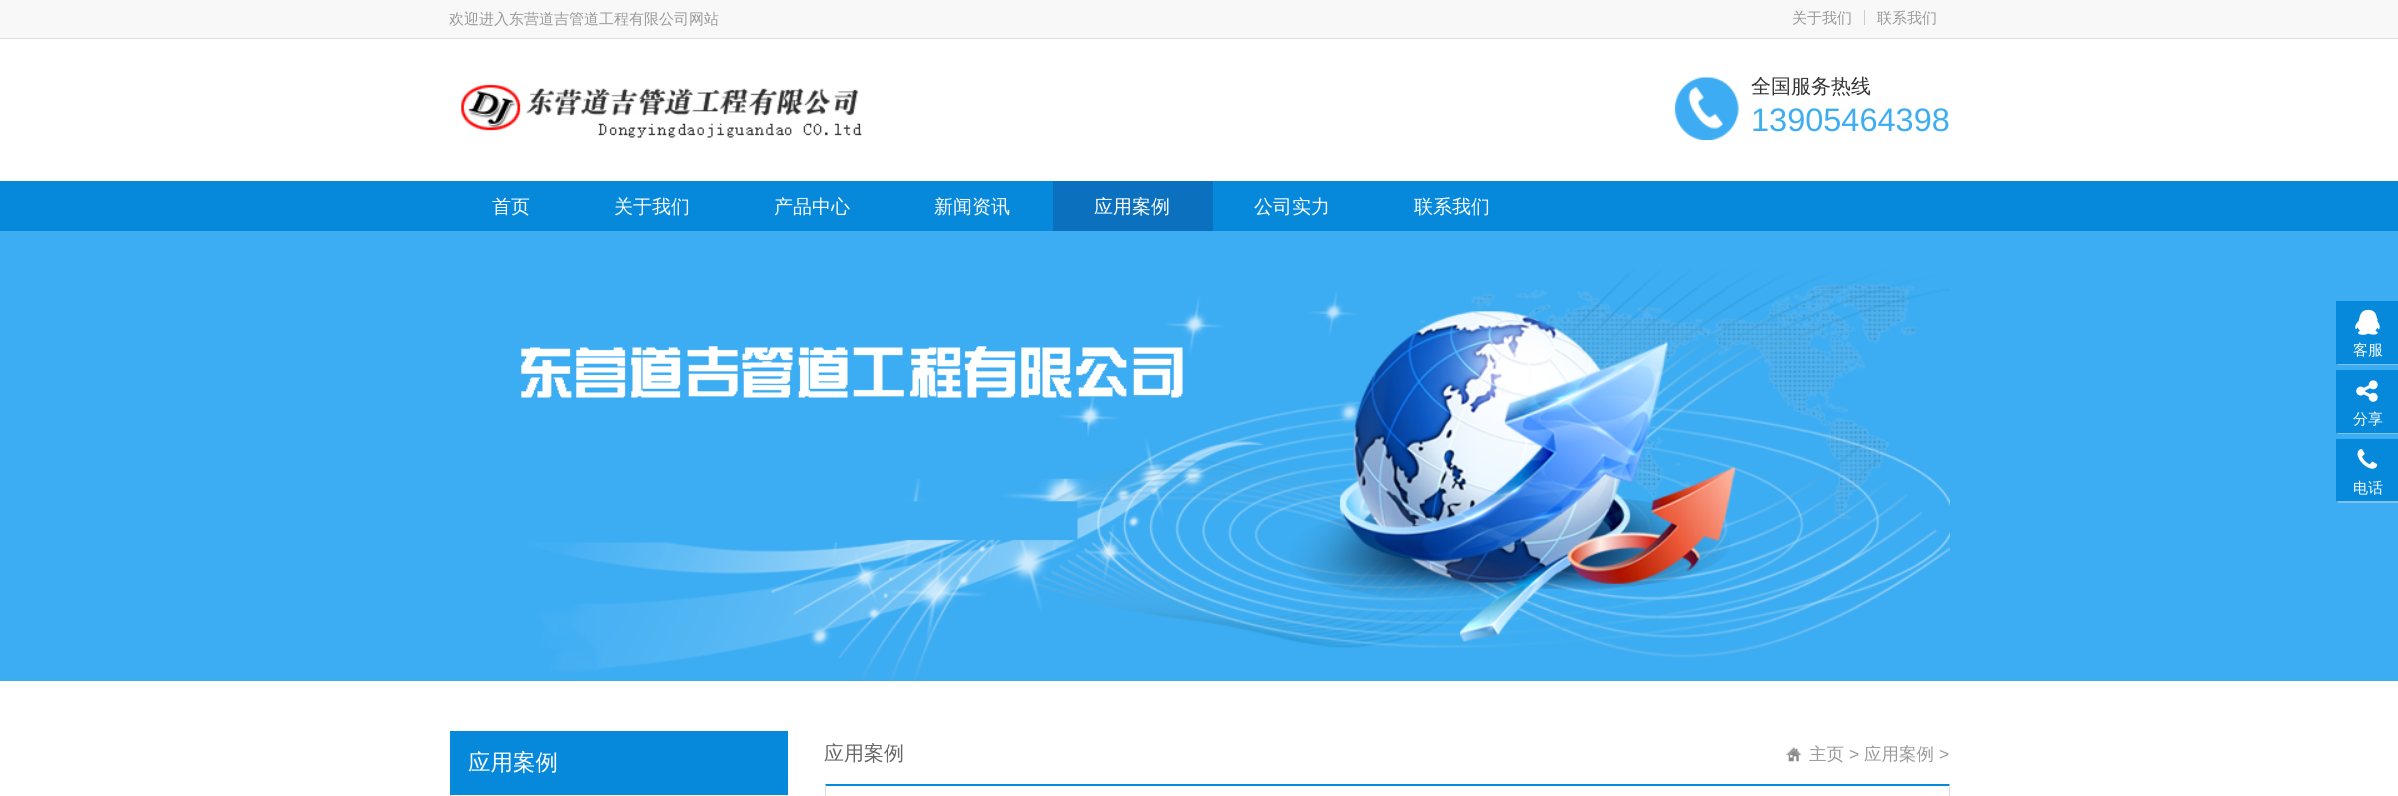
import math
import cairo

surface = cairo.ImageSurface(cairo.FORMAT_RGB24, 2398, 796)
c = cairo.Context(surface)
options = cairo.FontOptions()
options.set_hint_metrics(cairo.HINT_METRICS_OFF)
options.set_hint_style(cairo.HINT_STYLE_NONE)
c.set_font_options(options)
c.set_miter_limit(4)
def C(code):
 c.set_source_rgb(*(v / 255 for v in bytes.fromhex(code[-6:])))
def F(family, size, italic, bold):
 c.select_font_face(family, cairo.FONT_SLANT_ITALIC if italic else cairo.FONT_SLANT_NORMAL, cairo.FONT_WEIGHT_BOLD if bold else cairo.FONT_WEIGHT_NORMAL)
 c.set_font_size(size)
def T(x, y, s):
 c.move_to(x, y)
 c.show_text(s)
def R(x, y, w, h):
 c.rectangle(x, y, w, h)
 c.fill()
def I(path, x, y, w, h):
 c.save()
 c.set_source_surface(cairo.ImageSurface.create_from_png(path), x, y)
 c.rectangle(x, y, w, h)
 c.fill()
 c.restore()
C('ffffff')
c.paint()
C('f8f8f8')
R(0,0,2398,38)
C('dddddd')
R(0,38,2398,1)
F('WenQuanYi Zen Hei Medium',15,0,0)
C('999999')
T(449,24,'欢迎进入东营道吉管道工程有限公司网站')
T(1792,23,'关于我们')
C('cccccc')
R(1864,10,1,15)
C('999999')
T(1877,23,'联系我们')
I('1.png',461,84,401,54)
I('2.png',1675,77,64,63)
F('WenQuanYi Zen Hei Medium',20,0,0)
C('333333')
T(1751,93,'全国服务热线')
F('Liberation Sans',32.5,0,0)
C('3eadf2')
T(1751,131,'13905464398')
C('0689db')
R(0,181,2398,50)
F('WenQuanYi Zen Hei Medium',19,0,0)
C('ffffff')
T(492,213,'首页')
T(614,213,'关于我们')
T(774,213,'产品中心')
T(934,213,'新闻资讯')
C('0b70bd')
R(1053,181,160,50)
C('ffffff')
T(1094,213,'应用案例')
T(1254,213,'公司实力')
T(1414,213,'联系我们')
C('3dadf3')
R(0,231,2398,450)
I('3.png',521,269,1429,413)
C('0689db')
R(450,731,338,64)
F('WenQuanYi Zen Hei Medium',22.5,0,0)
C('ffffff')
T(468,770,'应用案例')
C('dddddd')
R(786,795,1,1)
R(450,795,1,1)
F('WenQuanYi Zen Hei Medium',20,0,0)
C('666666')
T(824,760,'应用案例')
I('4.png',1786,747,16,15)
F('WenQuanYi Zen Hei Medium',17.5,0,0)
C('999999')
T(1809,760,'主页')
F('Liberation Sans',17.5,0,0)
T(1849,760,'>')
F('WenQuanYi Zen Hei Medium',17.5,0,0)
T(1864,760,'应用案例')
F('Liberation Sans',17.5,0,0)
T(1939,760,'>')
C('0689db')
c.new_path()
c.move_to(825,784)
c.line_to(1950,784)
c.line_to(1949,786)
c.line_to(826,786)
c.close_path()
c.fill()
C('dddddd')
c.new_path()
c.move_to(1950,784)
c.line_to(1950,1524)
c.line_to(1949,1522)
c.line_to(1949,786)
c.close_path()
c.fill()
c.new_path()
c.move_to(825,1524)
c.line_to(825,784)
c.line_to(826,786)
c.line_to(826,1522)
c.close_path()
c.fill()
C('7fc2ec')
c.new_path()
c.move_to(2338,364)
c.line_to(2338,365)
c.line_to(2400,365)
c.line_to(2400,303)
c.line_to(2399,303)
c.line_to(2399,364)
c.close_path()
c.fill()
C('0689db')
R(2336,301,62,63)
I('5.png',2355,309,25,26)
F('WenQuanYi Zen Hei Medium',15,0,0)
C('ffffff')
T(2353,355,'客服')
C('7fc2ec')
c.new_path()
c.move_to(2338,432)
c.line_to(2338,434)
c.line_to(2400,434)
c.line_to(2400,371)
c.line_to(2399,371)
c.line_to(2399,432)
c.close_path()
c.fill()
C('0689db')
R(2336,370,62,63)
I('6.png',2356,380,22,22)
C('ffffff')
T(2353,424,'分享')
C('7fc2ec')
c.new_path()
c.move_to(2338,501)
c.line_to(2338,503)
c.line_to(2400,503)
c.line_to(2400,440)
c.line_to(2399,440)
c.line_to(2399,501)
c.close_path()
c.fill()
C('0689db')
R(2336,439,62,62)
I('7.png',2357,449,21,20)
C('ffffff')
T(2353,493,'电话')
surface.write_to_png('o.png')
